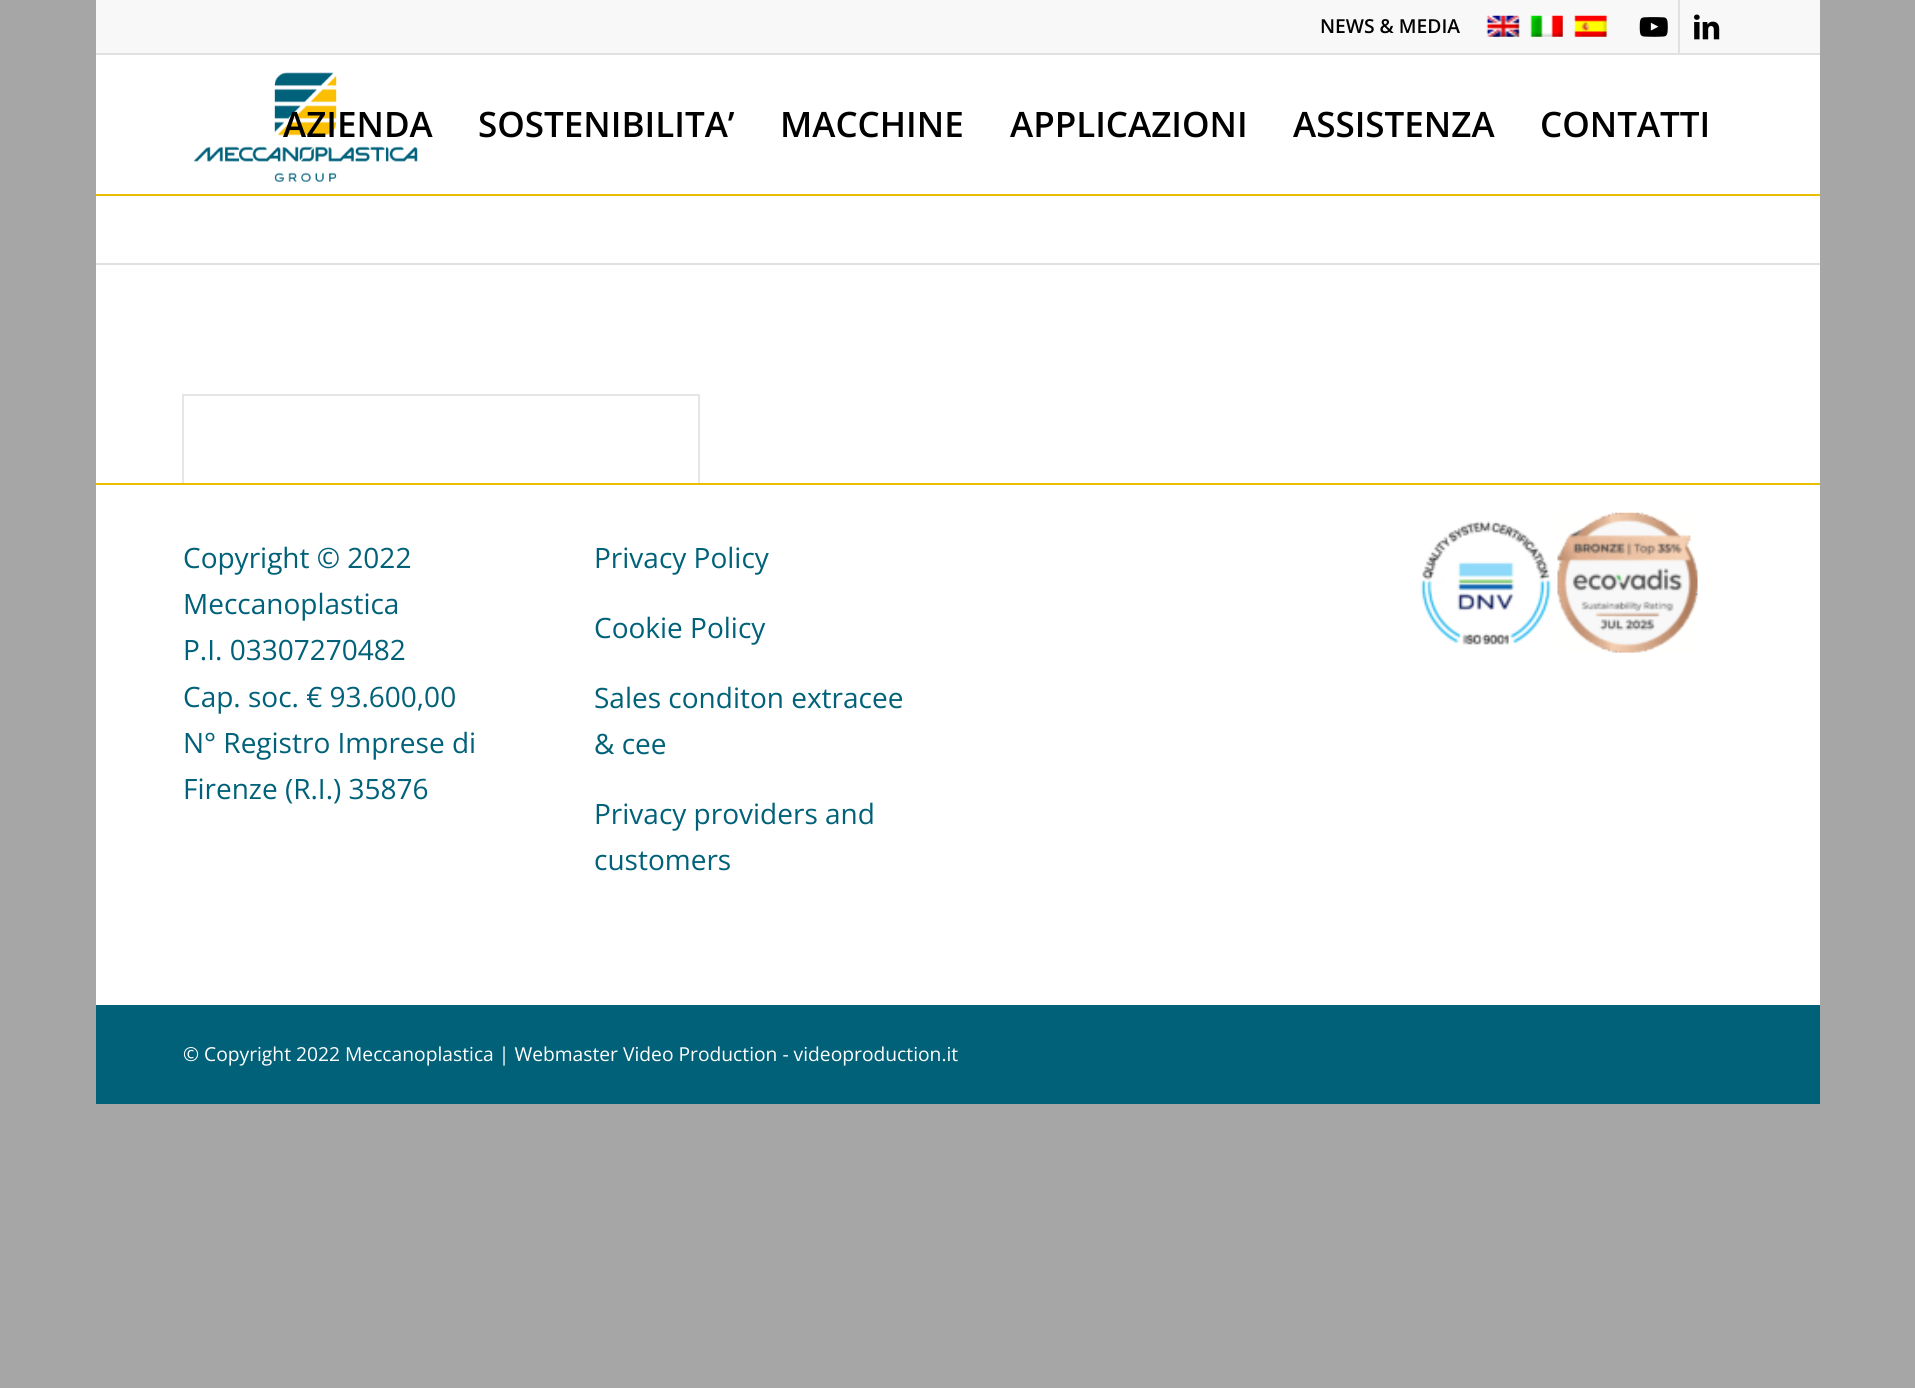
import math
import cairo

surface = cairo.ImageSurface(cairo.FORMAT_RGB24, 1915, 1388)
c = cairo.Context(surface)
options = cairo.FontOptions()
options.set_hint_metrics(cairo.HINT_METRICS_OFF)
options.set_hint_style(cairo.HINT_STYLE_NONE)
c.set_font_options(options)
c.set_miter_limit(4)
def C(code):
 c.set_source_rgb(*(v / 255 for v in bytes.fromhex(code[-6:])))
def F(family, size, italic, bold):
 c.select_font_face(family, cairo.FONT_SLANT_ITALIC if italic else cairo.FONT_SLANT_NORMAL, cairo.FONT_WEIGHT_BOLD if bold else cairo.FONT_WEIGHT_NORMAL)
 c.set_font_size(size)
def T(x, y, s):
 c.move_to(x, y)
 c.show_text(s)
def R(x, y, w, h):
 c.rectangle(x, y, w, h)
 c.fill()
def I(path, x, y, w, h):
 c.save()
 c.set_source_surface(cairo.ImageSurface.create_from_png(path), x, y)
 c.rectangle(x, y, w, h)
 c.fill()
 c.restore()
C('a6a6a6')
c.paint()
C('f8f8f8')
R(96,0,1724,53)
C('e1e1e1')
R(96,53,1724,2)
F('Open Sans SemiBold',19.25,0,0)
C('000000')
T(1320,33,'NEWS & MEDIA')
I('1.png',1486,15,34,22)
I('2.png',1530,15,33,22)
I('3.png',1574,15,33,22)
C('e1e1e1')
R(1678,0,2,53)
I('4.png',1639,17,29,20)
I('5.png',1694,14,26,26)
C('ffffff')
R(96,55,1724,428)
C('ebbd00')
R(96,194,1724,2)
I('6.png',193,72,225,110)
F('Open Sans SemiBold',35,0,0)
C('000000')
T(283,137,'AZIENDA')
T(478,137,'SOSTENIBILITA’')
T(780,137,'MACCHINE')
T(1010,137,'APPLICAZIONI')
T(1293,137,'ASSISTENZA')
T(1540,137,'CONTATTI')
C('e1e1e1')
R(96,263,1724,2)
c.rectangle(183,395,516,556)
C('e6e6e6')
c.stroke()
C('ffffff')
R(96,485,1724,520)
C('ebbd00')
R(96,483,1724,2)
F('Open Sans',28,0,0)
C('006179')
T(183,568,'Copyright © 2022')
T(183,614,'Meccanoplastica')
T(183,660,'P.I. 03307270482')
T(183,707,'Cap. soc. € 93.600,00')
T(183,753,'N° Registro Imprese di')
T(183,799,'Firenze (R.I.) 35876')
T(594,568,'Privacy Policy')
T(594,638,'Cookie Policy')
T(594,708,'Sales conditon extracee')
T(594,754,'& cee')
T(594,824,'Privacy providers and')
T(594,870,'customers')
I('7.png',1420,521,131,124)
I('8.png',1557,512,141,141)
R(96,1005,1724,99)
F('Open Sans',19.25,0,0)
C('ffffff')
T(183,1061,'© Copyright 2022 Meccanoplastica | Webmaster Video Production - videoproduction.it')
surface.write_to_png('o.png')
